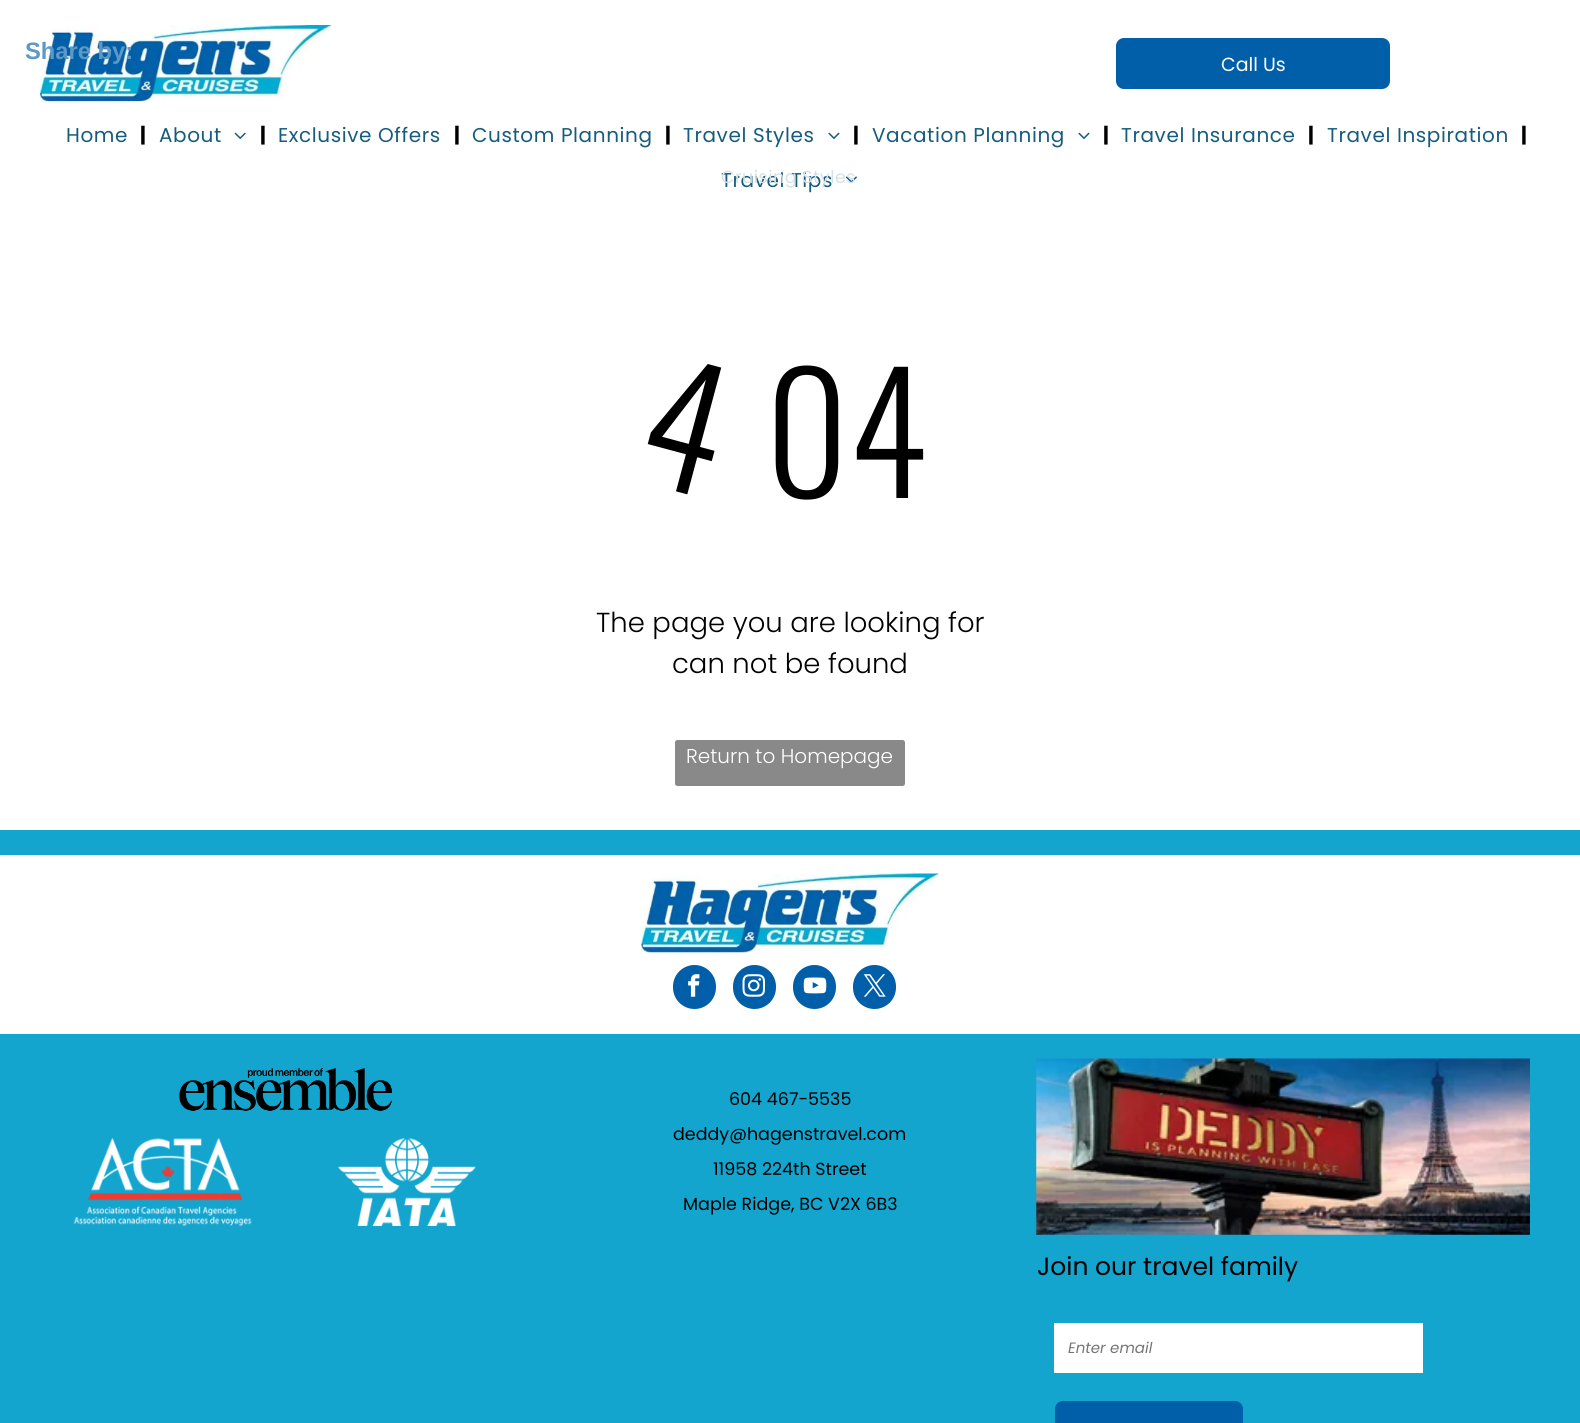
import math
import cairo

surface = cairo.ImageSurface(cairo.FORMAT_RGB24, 1580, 1423)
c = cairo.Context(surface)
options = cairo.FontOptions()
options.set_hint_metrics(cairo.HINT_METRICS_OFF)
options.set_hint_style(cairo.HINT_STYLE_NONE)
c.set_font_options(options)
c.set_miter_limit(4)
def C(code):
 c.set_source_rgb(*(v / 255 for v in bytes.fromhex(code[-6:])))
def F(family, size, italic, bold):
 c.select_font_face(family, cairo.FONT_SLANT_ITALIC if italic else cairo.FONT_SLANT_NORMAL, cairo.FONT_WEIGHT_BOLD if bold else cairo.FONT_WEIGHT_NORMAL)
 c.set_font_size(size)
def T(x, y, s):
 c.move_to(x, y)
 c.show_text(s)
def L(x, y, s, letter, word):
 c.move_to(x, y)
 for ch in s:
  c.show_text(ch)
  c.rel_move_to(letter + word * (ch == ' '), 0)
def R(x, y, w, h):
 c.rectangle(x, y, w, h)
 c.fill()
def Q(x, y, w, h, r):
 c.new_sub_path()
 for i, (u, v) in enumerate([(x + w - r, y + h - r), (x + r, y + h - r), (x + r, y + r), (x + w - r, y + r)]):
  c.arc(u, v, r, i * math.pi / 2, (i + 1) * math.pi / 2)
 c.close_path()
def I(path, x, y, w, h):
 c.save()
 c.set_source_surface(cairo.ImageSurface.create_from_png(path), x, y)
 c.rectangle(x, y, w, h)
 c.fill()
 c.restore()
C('ffffff')
c.paint()
I('1.png',40,25,292,77)
F('Liberation Sans',23.75,0,1)
C('5e99c6')
T(25,59,'Share by:')
C('015faa')
Q(1116,38,274,51,8)
c.fill()
F('Poppins',19,0,0)
C('ffffff')
T(1221,71,'Call Us')
F('Poppins',20,0,0)
C('165c7d')
L(66,142,'Home',.6,0)
F('Poppins',20,0,1)
C('000000')
T(140,142,'|')
F('Poppins',20,0,0)
C('165c7d')
L(159,142,'About',.6,0)
I('2.png',234,132,12,8)
F('Poppins',20,0,1)
C('000000')
T(260,142,'|')
F('Poppins',20,0,0)
C('165c7d')
L(278,142,'Exclusive Offers',.6,0)
F('Poppins',20,0,1)
C('000000')
T(454,142,'|')
F('Poppins',20,0,0)
C('165c7d')
L(472,142,'Custom Planning',.6,0)
F('Poppins',20,0,1)
C('000000')
T(665,142,'|')
F('Poppins',20,0,0)
C('165c7d')
L(683,142,'Travel Styles',.6,0)
I('3.png',828,132,12,8)
F('Poppins',20,0,1)
C('000000')
T(853,142,'|')
F('Poppins',20,0,0)
C('165c7d')
L(721,187,'Travel Tips',.6,0)
I('4.png',845,176,12,7)
F('Poppins',17.5,0,0)
C('d5e1e7')
L(721,183,'Cruising Styles',.5,0)
F('Poppins',20,0,0)
C('165c7d')
L(872,142,'Vacation Planning',.6,0)
I('3.png',1078,132,12,8)
F('Poppins',20,0,1)
C('000000')
T(1103,142,'|')
F('Poppins',20,0,0)
C('165c7d')
L(1121,142,'Travel Insurance',.6,0)
F('Poppins',20,0,1)
C('000000')
T(1308,142,'|')
F('Poppins',20,0,0)
C('165c7d')
L(1327,142,'Travel Inspiration',.6,0)
F('Poppins',20,0,1)
C('000000')
T(1521,142,'|')
F('Oswald Light',162,0,0)
c.save()
c.translate(630,479)
c.rotate(15 * math.pi / 180)
T(0,0,'4')
c.restore()
T(765,498,'04')
F('Poppins Light',27.5,0,0)
T(596,632,'The page you are looking for')
T(672,673,'can not be found')
C('898989')
Q(675,740,230,46,2.5)
c.fill()
F('Poppins Light',20,0,0)
C('ffffff')
T(686,763,'Return to Homepage')
C('13a5ce')
R(0,830,1580,593)
C('ffffff')
R(0,855,1580,179)
I('5.png',641,873,298,80)
C('015faa')
Q(673,965,43,44,21.5)
c.fill()
I('6.png',688,974,12,23)
Q(733,965,43,44,21.5)
c.fill()
I('7.png',742,974,23,23)
Q(793,965,43,44,21.5)
c.fill()
I('8.png',803,977,24,17)
Q(853,965,43,44,21.5)
c.fill()
I('9.png',863,974,23,23)
I('10.png',179,1068,213,43)
I('11.png',73,1138,179,88)
I('12.png',338,1138,138,88)
F('Poppins',17.5,0,0)
C('000000')
T(729,1105,'604 467-5535')
T(673,1140,'deddy@hagenstravel.com')
T(713,1175,'11958 224th Street')
T(683,1210,'Maple Ridge, BC V2X 6B3')
I('13.png',1036,1058,494,177)
F('Poppins',25,0,0)
T(1037,1275,'Join our travel family')
C('ffffff')
R(1054,1323,369,50)
F('Poppins',15,1,0)
C('757575')
T(1068,1353,'Enter email')
C('015faa')
Q(1055,1401,188,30,8)
c.fill()
surface.write_to_png('o.png')
